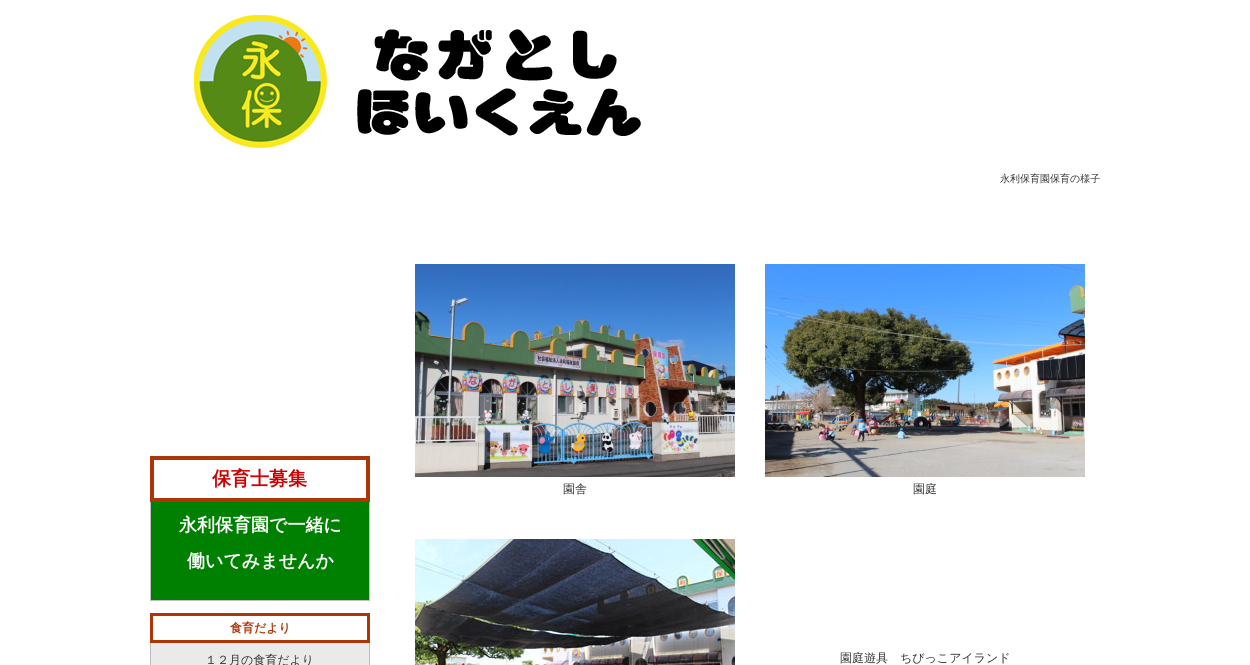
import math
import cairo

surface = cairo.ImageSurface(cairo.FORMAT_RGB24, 1250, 665)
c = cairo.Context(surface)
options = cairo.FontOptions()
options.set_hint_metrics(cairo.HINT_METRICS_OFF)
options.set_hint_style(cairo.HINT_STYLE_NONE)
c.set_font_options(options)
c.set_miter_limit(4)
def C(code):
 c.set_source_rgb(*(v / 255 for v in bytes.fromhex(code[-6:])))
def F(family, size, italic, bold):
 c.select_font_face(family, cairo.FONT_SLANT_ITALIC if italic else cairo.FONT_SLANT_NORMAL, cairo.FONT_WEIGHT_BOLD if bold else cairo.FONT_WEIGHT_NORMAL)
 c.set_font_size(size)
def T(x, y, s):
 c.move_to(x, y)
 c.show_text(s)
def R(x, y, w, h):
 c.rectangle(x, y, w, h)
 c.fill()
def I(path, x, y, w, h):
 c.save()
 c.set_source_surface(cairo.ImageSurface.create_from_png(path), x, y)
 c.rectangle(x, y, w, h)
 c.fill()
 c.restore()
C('ffffff')
c.paint()
I('1.png',194,15,447,133)
F('WenQuanYi Zen Hei Medium',10,0,0)
C('333333')
T(1000,182,'永利保育園保育の様子')
c.rectangle(152,458,216,42)
C('ac3608')
c.set_line_width(4)
c.stroke()
F('WenQuanYi Zen Hei',19,0,1)
C('cc0000')
T(212,485,'保育士募集')
C('008000')
R(151,502,218,98)
C('bfbfbf')
R(369,502,1,99)
R(150,600,220,1)
R(150,502,1,99)
F('WenQuanYi Zen Hei',18,0,1)
C('ffffff')
T(179,531,'永利保育園で一緒に')
T(187,567,'働いてみませんか')
c.rectangle(151.5,614.5,217,27)
C('ac3608')
c.set_line_width(3)
c.stroke()
F('WenQuanYi Zen Hei',12,0,1)
T(230,632,'食育だより')
C('eaeaea')
R(151,643,218,22)
C('bfbfbf')
R(369,643,1,22)
R(150,643,1,22)
F('WenQuanYi Zen Hei Medium',12,0,0)
C('333333')
T(205,664,'１２月の食育だより')
I('2.png',415,264,320,213)
T(563,493,'園舎')
I('3.png',765,264,320,213)
T(913,493,'園庭')
I('4.png',415,539,320,126)
T(840,662,'園庭遊具　ちびっこアイランド')
surface.write_to_png('o.png')
